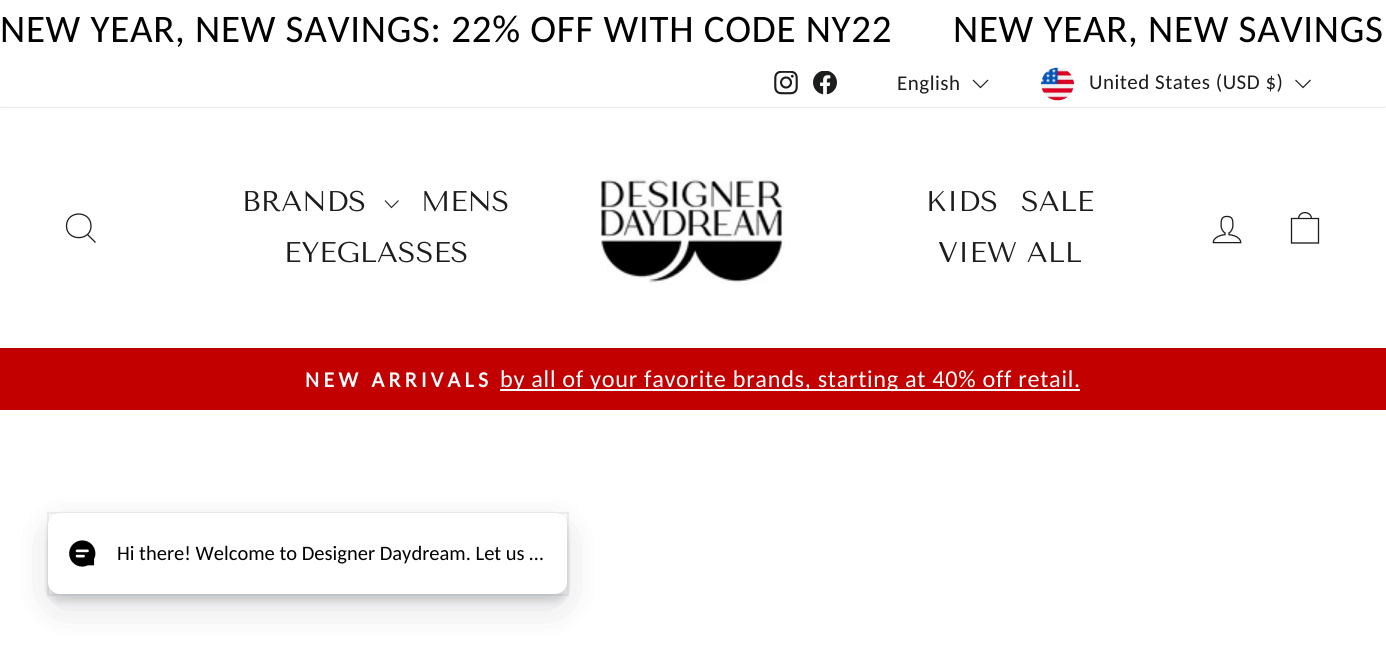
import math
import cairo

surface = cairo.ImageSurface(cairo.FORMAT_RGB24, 1386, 652)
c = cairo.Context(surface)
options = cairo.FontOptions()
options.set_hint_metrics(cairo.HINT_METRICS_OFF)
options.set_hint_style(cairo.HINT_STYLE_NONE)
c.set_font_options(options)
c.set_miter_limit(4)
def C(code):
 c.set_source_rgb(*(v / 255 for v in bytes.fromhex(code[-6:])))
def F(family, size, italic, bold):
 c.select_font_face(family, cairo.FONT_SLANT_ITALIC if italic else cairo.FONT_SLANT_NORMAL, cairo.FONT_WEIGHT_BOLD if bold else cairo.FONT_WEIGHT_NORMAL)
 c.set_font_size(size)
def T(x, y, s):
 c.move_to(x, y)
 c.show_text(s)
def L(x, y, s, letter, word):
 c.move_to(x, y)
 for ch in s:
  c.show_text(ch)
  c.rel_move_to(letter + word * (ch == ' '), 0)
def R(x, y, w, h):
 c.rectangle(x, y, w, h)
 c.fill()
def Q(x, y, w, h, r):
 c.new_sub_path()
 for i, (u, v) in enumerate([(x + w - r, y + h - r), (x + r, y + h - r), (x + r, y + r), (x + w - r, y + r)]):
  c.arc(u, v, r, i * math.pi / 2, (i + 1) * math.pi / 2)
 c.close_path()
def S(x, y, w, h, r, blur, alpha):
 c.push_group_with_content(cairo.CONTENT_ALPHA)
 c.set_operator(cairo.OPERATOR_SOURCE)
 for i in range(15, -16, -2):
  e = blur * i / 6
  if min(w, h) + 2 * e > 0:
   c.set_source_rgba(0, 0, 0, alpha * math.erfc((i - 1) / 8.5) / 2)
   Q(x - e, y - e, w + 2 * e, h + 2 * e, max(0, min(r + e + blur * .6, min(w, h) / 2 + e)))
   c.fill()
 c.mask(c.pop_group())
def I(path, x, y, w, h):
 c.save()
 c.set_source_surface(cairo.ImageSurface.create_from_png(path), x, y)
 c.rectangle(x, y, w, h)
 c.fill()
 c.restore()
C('ffffff')
c.paint()
F('Carlito',39,0,0)
C('000000')
L(0,42,'NEW YEAR, NEW SAVINGS: 22% OFF WITH CODE NY22',.7,0)
L(953,42,'NEW YEAR, NEW SAVINGS',.7,0)
I('1.png',774,71,24,24)
I('2.png',813,71,24,24)
F('Carlito',21,0,0)
C('1c1d1d')
L(897,90,'English',.5,0)
c.new_path()
c.move_to(973,80)
c.line_to(980.5,87.5)
c.line_to(988,80)
c.set_line_width(1.2)
c.stroke()
I('3.png',1041,67,33,34)
L(1089,89,'United States (USD $)',.5,0)
c.new_path()
c.move_to(1295.5,80)
c.line_to(1303,87.5)
c.line_to(1310.5,80)
c.stroke()
C('c20000')
R(0,348,1386,62)
c.save()
c.set_fill_rule(cairo.FILL_RULE_EVEN_ODD)
c.new_path()
c.move_to(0,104)
c.line_to(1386,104)
c.line_to(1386,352)
c.line_to(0,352)
c.close_path()
c.move_to(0,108)
c.line_to(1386,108)
c.line_to(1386,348)
c.line_to(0,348)
c.close_path()
c.clip()
C('000000')
S(0,108,1386,240,0,1,.2)
c.restore()
c.new_path()
c.move_to(91,226)
c.curve_to(91,241.5,66.5,241.5,66.5,226)
c.curve_to(66.5,210,91,210,91,226)
c.close_path()
c.move_to(95.5,242.5)
c.line_to(87.5,234.5)
C('1c1d1d')
c.set_line_width(1.3)
c.stroke()
F('Tenor Sans',28.5,0,0)
T(242,211,'BRANDS')
c.new_path()
c.move_to(385,200.5)
c.line_to(391.5,207.5)
c.line_to(398.5,200.5)
c.set_line_width(1.1)
c.stroke()
T(421,211,'MENS')
T(284,262,'EYEGLASSES')
I('4.png',600,177,185,108)
T(926,211,'KIDS')
T(1021,211,'SALE')
T(938,262,'VIEW ALL')
I('5.png',1212,215,30,29)
c.new_path()
c.move_to(1291.5,218.5)
c.line_to(1318.5,218.5)
c.line_to(1318.5,243)
c.line_to(1291.5,243)
c.close_path()
c.move_to(1298.5,219)
c.curve_to(1298.5,210.5,1311.5,210.5,1311.5,219)
c.set_line_width(1.3)
c.stroke()
F('Carlito',21.75,0,1)
C('ffffff')
L(305,387,'NEW ARRIVALS',4.4,0)
R(500,389,580,2)
F('Carlito',24.25,0,0)
L(500,387,'by all of your favorite brands, starting at 40% off retail.',.7,0)
C('373f47')
S(48,525,519,83,12,19,.08)
S(48,519,519,83,12,3,.08)
c.rectangle(48,513,520,82)
c.set_source_rgba(0.216,0.247,0.278,0.04)
c.set_line_width(2)
c.stroke()
C('373f47')
S(48,525,519,83,12,19,.08)
S(48,519,519,83,12,3,.08)
c.rectangle(48,513,520,82)
c.set_source_rgba(0.216,0.247,0.278,0.04)
c.stroke()
C('ffffff')
Q(48,513,519,81,12)
c.fill()
I('6.png',69,540,27,27)
F('Carlito',20.5,0,0)
C('000000')
T(117,560,'Hi there! Welcome to Designer Daydream. Let us …')
surface.write_to_png('o.png')
